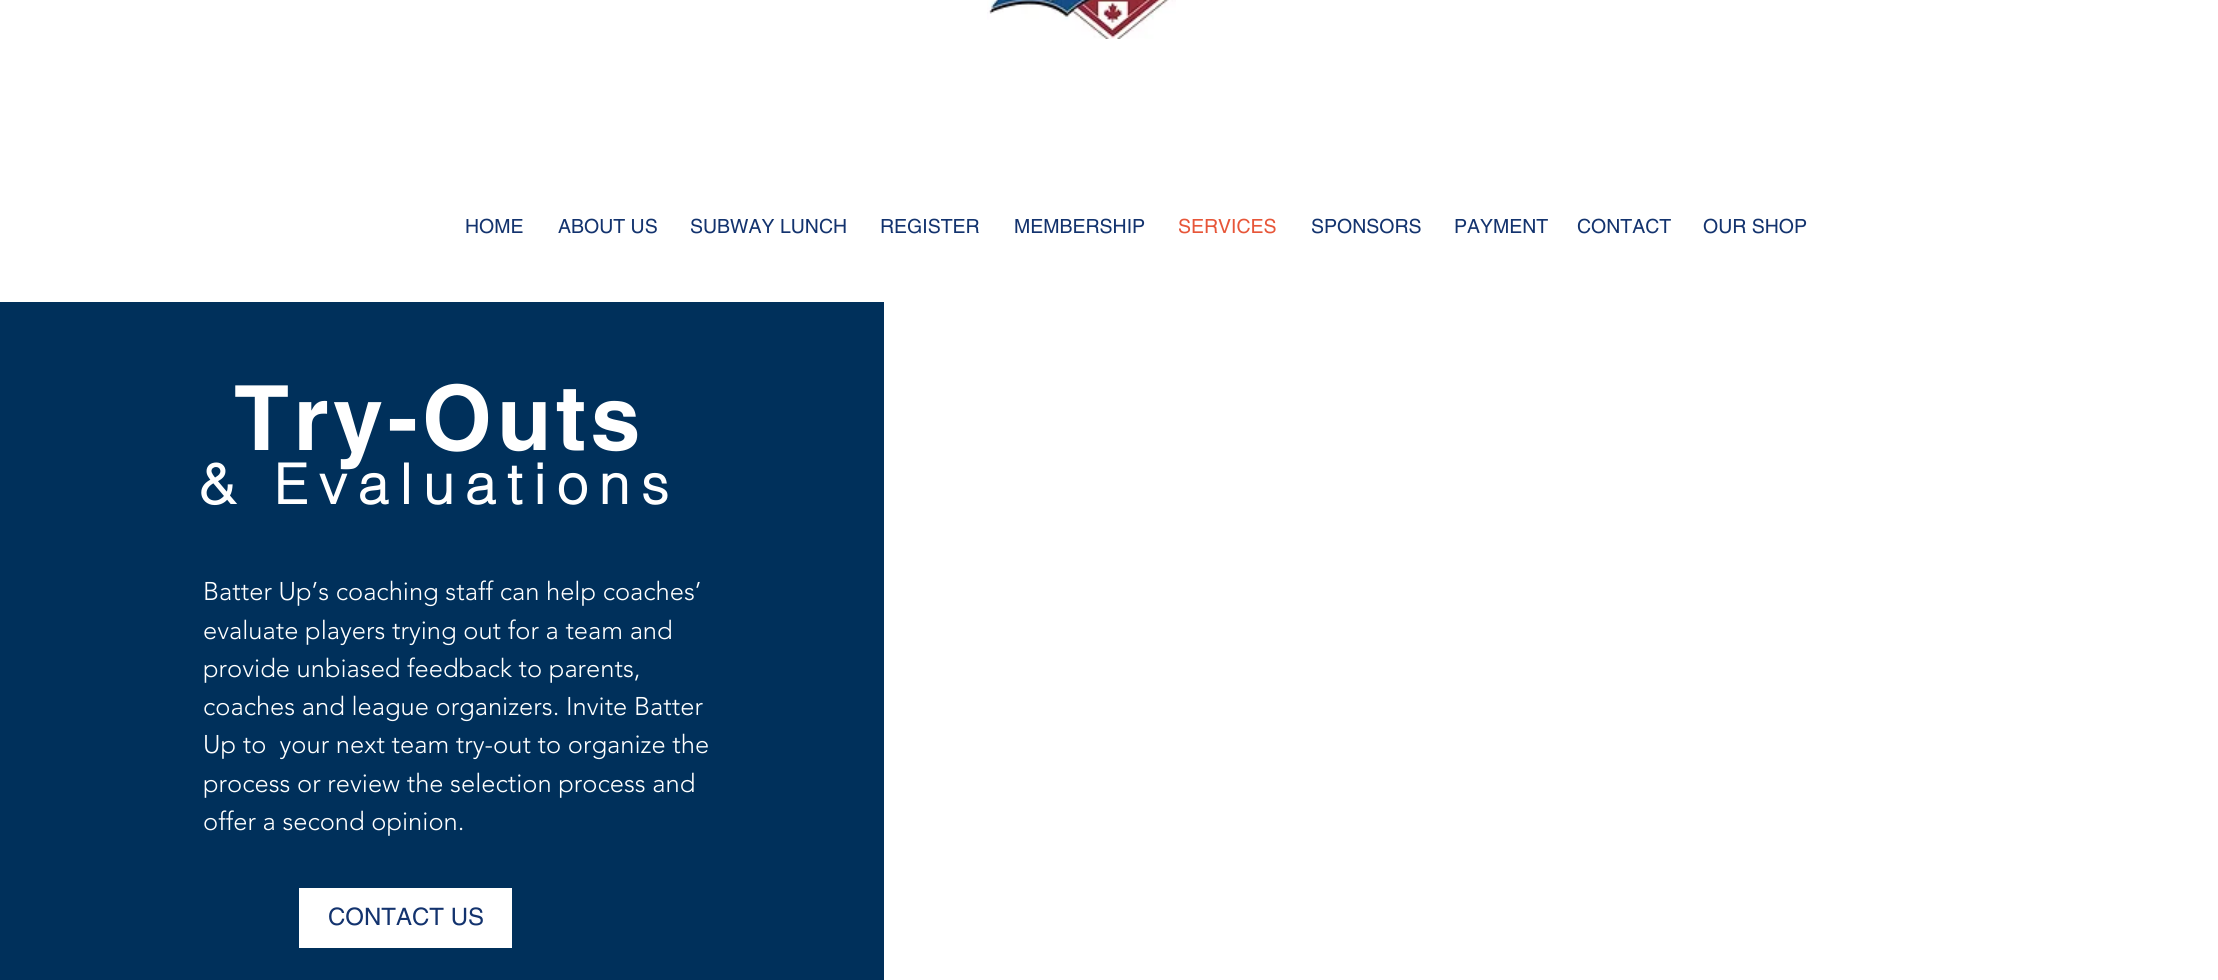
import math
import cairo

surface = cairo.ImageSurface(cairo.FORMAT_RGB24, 2218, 980)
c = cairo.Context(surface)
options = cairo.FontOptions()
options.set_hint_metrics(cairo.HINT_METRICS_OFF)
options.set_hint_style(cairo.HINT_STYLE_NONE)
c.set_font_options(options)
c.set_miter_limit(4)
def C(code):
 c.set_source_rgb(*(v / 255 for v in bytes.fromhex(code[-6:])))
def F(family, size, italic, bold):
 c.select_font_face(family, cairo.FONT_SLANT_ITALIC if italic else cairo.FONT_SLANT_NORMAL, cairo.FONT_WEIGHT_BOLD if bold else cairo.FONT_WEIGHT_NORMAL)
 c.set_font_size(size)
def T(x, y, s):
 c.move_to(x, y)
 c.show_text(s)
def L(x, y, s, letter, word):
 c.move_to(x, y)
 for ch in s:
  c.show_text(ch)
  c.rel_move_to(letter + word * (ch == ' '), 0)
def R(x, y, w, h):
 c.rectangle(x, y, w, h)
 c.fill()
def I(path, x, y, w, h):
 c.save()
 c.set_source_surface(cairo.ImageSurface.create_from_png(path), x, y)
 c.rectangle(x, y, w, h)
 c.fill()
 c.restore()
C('ffffff')
c.paint()
I('1.png',987,0,189,39)
F('helvetica',19.5,0,0)
C('13336e')
T(465,233,'HOME')
T(558,233,'ABOUT US')
T(690,233,'SUBWAY LUNCH')
T(880,233,'REGISTER')
T(1014,233,'MEMBERSHIP')
C('e75639')
T(1178,233,'SERVICES')
C('13336e')
T(1311,233,'SPONSORS')
T(1454,233,'PAYMENT')
T(1577,233,'CONTACT')
T(1703,233,'OUR SHOP')
C('00305b')
R(0,302,884,678)
F('helvetica',90,0,1)
C('ffffff')
L(234,450,'Try-Outs',4.5,0)
F('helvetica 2',55.5,0,1)
L(199,504,'& Evaluations',11.1,0)
F('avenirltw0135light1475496 Light',25.5,0,0)
T(203,600,'Batter Up’s coaching staff can help coaches’')
T(203,639,'evaluate players trying out for a team and')
T(203,677,'provide unbiased feedback to parents,')
T(203,715,'coaches and league organizers. Invite Batter')
T(203,753,'Up to  your next team try-out to organize the')
T(203,792,'process or review the selection process and')
T(203,830,'offer a second opinion.')
R(299,888,213,60)
F('helvetica',24,0,0)
C('13336e')
T(328,925,'CONTACT US')
surface.write_to_png('o.png')
